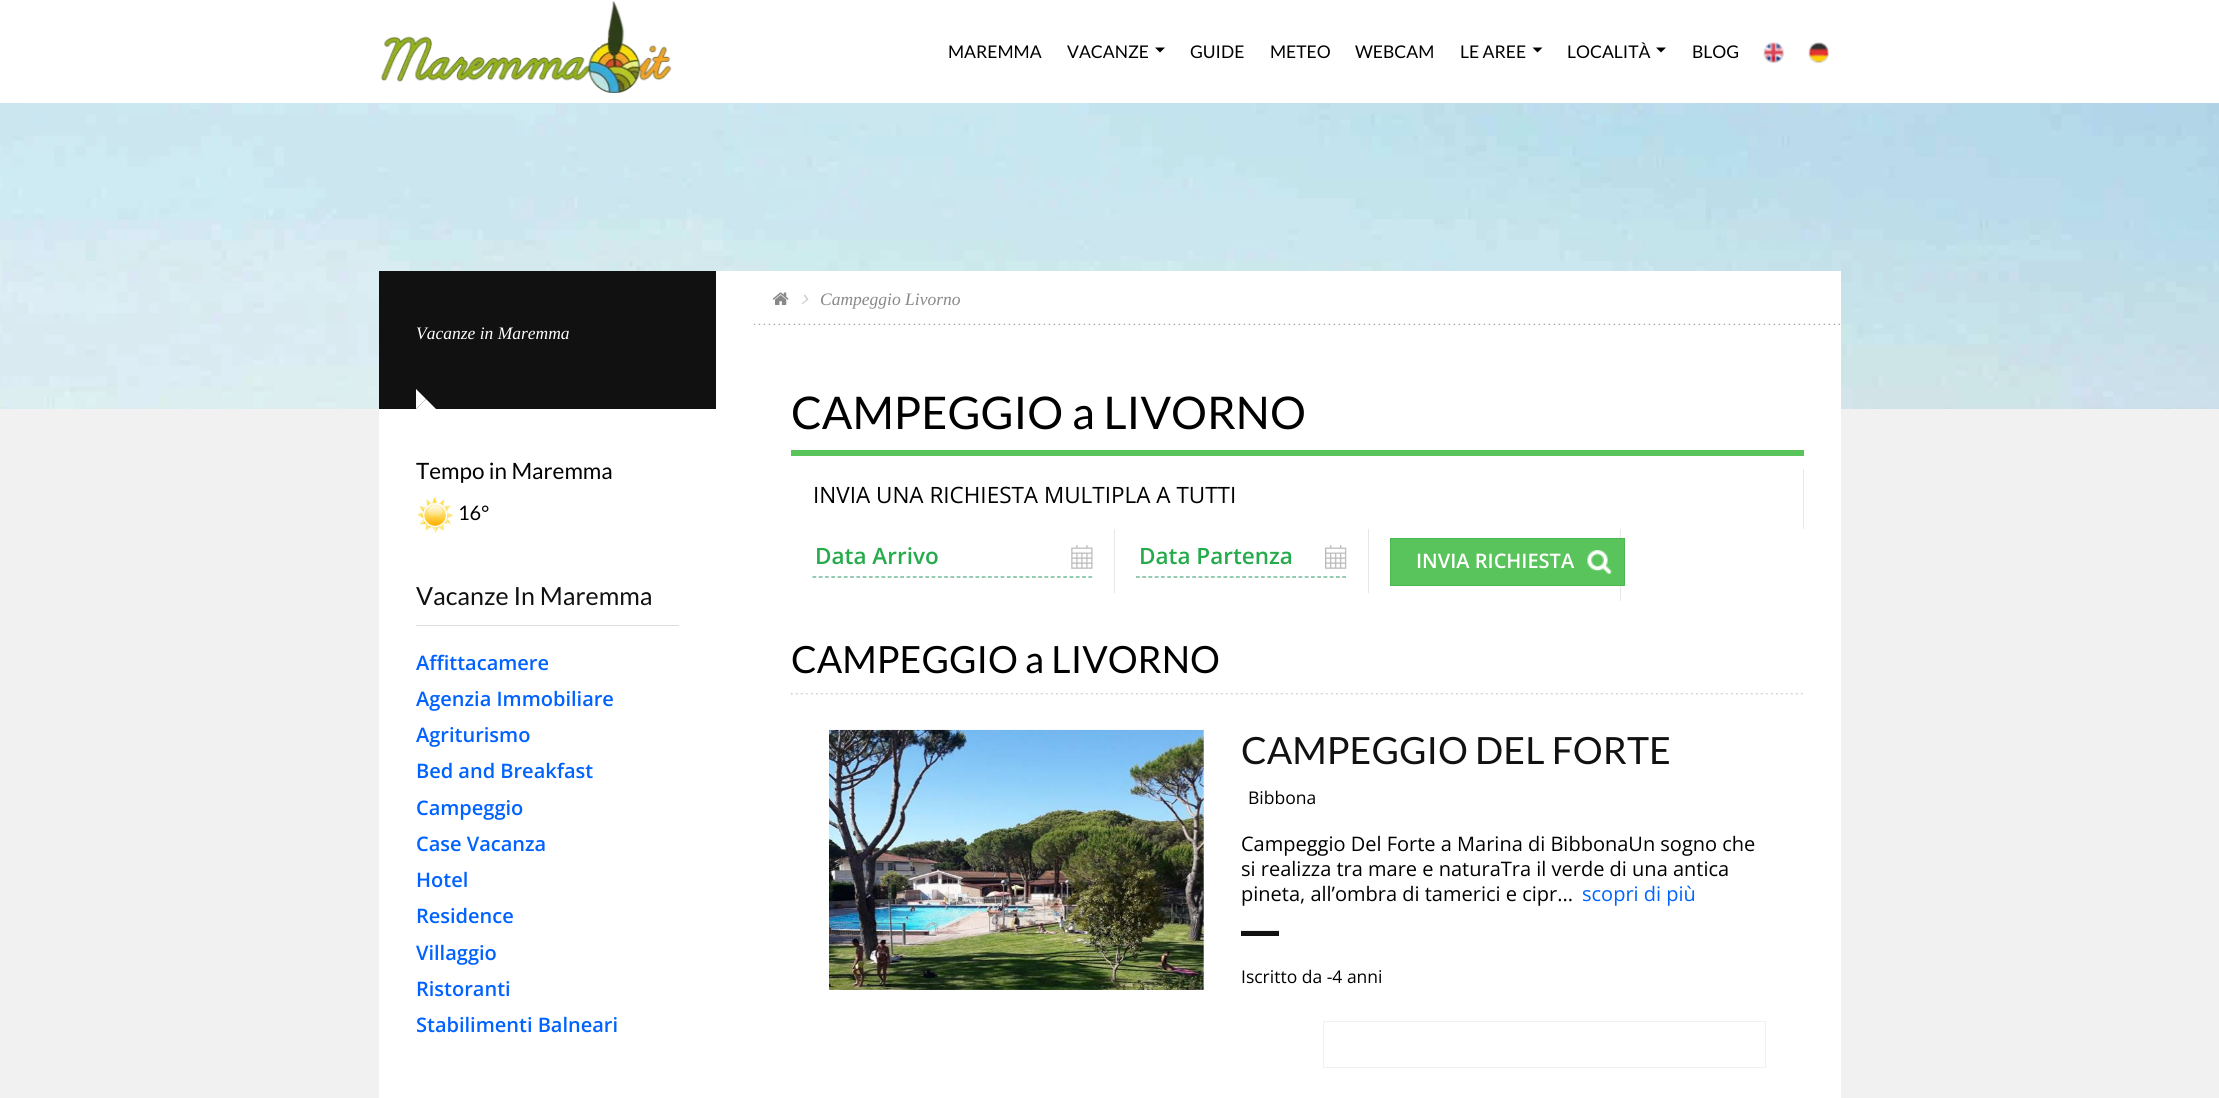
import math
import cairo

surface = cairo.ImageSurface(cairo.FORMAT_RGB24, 2219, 1098)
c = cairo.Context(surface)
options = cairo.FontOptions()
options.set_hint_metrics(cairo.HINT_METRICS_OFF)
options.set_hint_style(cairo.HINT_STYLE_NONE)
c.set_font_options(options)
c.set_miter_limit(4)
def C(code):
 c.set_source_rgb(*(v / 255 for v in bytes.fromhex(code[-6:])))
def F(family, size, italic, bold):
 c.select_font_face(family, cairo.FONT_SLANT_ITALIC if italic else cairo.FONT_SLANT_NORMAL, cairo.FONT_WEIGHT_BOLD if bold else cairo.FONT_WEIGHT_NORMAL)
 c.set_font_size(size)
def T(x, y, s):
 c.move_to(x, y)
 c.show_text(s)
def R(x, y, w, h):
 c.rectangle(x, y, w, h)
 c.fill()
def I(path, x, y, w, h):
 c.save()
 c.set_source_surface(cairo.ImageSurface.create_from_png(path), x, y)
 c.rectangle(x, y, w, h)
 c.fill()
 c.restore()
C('f1f1f1')
c.paint()
C('ffffff')
R(0,0,2219,103)
I('1.png',381,1,291,92)
F('Lato',17.5,0,0)
C('000000')
T(948,58,'MAREMMA')
T(1067,58,'VACANZE')
c.new_path()
c.move_to(1155,47.5)
c.line_to(1165,47.5)
c.line_to(1160,52.5)
c.close_path()
c.fill()
T(1190,58,'GUIDE')
T(1270,58,'METEO')
T(1355,58,'WEBCAM')
T(1460,58,'LE AREE')
c.new_path()
c.move_to(1532.5,47.5)
c.line_to(1542.5,47.5)
c.line_to(1537.5,52.5)
c.close_path()
c.fill()
T(1567,58,'LOCALITÀ')
c.new_path()
c.move_to(1656,47.5)
c.line_to(1666,47.5)
c.line_to(1661,52.5)
c.close_path()
c.fill()
T(1692,58,'BLOG')
I('2.png',1763,42,21,21)
I('3.png',1808,42,21,21)
I('4.png',0,103,2219,306)
C('ffffff')
R(379,271,1462,827)
C('111111')
R(379,271,337,138)
F('Liberation Serif',17.5,1,0)
C('ffffff')
T(416,339,'Vacanze in Maremma')
c.new_path()
c.move_to(436,409)
c.line_to(416,409)
c.line_to(426,399)
c.close_path()
c.fill()
c.new_path()
c.move_to(416,409)
c.line_to(416,389)
c.line_to(426,399)
c.close_path()
c.fill()
F('Lato',22.5,0,0)
C('000000')
T(416,479,'Tempo in Maremma')
I('5.png',417,497,36,36)
F('Lato',20,0,0)
T(458,520,'16°')
C('dedede')
R(416,625,263,1)
F('Lato',25,0,0)
C('111111')
T(416,605,'Vacanze In Maremma')
F('Open Sans SemiBold',20,0,0)
C('0062ff')
T(416,670,'Affittacamere')
T(416,706,'Agenzia Immobiliare')
T(416,742,'Agriturismo')
T(416,778,'Bed and Breakfast')
T(416,815,'Campeggio')
T(416,851,'Case Vacanza')
T(416,887,'Hotel')
T(416,923,'Residence')
T(416,960,'Villaggio')
T(416,996,'Ristoranti')
T(416,1032,'Stabilimenti Balneari')
I('6.png',753,323,1089,2)
I('7.png',772,292,17,13)
I('8.png',801,294,8,11)
F('Liberation Serif',17.5,1,0)
C('888888')
T(820,305,'Campeggio Livorno')
F('Lato',45,0,0)
C('000000')
T(791,429,'CAMPEGGIO a LIVORNO')
C('59c45a')
R(791,450,1013,6)
C('e6e6e6')
R(1803,469,1,60)
F('Open Sans',22.5,0,0)
C('000000')
T(813,503,'INVIA UNA RICHIESTA MULTIPLA A TUTTI')
C('e6e6e6')
R(1114,529,1,64)
I('9.png',1071,545,22,24)
c.new_path()
c.move_to(812.5,577)
c.line_to(1092.5,577)
C('4da981')
c.set_line_width(1.2)
c.set_dash([3.75,2.52])
c.stroke()
F('Open Sans SemiBold',22.5,0,0)
C('25ab4b')
T(815,564,'Data Arrivo')
C('e6e6e6')
R(1368,529,1,64)
I('10.png',1325,545,22,24)
c.new_path()
c.move_to(1136,577)
c.line_to(1346,577)
C('4da981')
c.set_dash([3.75,2.5])
c.stroke()
C('25ab4b')
T(1139,564,'Data Partenza')
C('e6e6e6')
R(1620,529,1,72)
C('59c45b')
R(1391,539,233,46)
I('11.png',1587,550,25,24)
c.rectangle(1390.5,538.5,234,47)
C('4db74f')
c.set_line_width(1)
c.set_dash([])
c.stroke()
F('Open Sans SemiBold',20,0,0)
C('ffffff')
T(1416,568,'INVIA RICHIESTA')
F('Lato',37.5,0,0)
C('000000')
T(791,673,'CAMPEGGIO a LIVORNO')
I('12.png',791,693,1012,2)
I('13.png',829,729,375,261)
C('111111')
T(1241,764,'CAMPEGGIO DEL FORTE')
F('Open Sans',17.5,0,0)
C('000000')
T(1248,804,'Bibbona')
F('Open Sans',20,0,0)
T(1241,851,'Campeggio Del Forte a Marina di BibbonaUn sogno che')
T(1241,876,'si realizza tra mare e naturaTra il verde di una antica')
T(1241,901,'pineta, all’ombra di tamerici e cipr...')
C('0062ff')
T(1582,901,'scopri di più')
C('111111')
R(1241,931,38,5)
C('eeeeee')
R(1241,930,38,1)
F('Open Sans',17.5,0,0)
C('000000')
T(1241,983,'Iscritto da -4 anni')
c.rectangle(1323.5,1021.5,442,46)
C('f0f0f0')
c.stroke()
surface.write_to_png('o.png')
